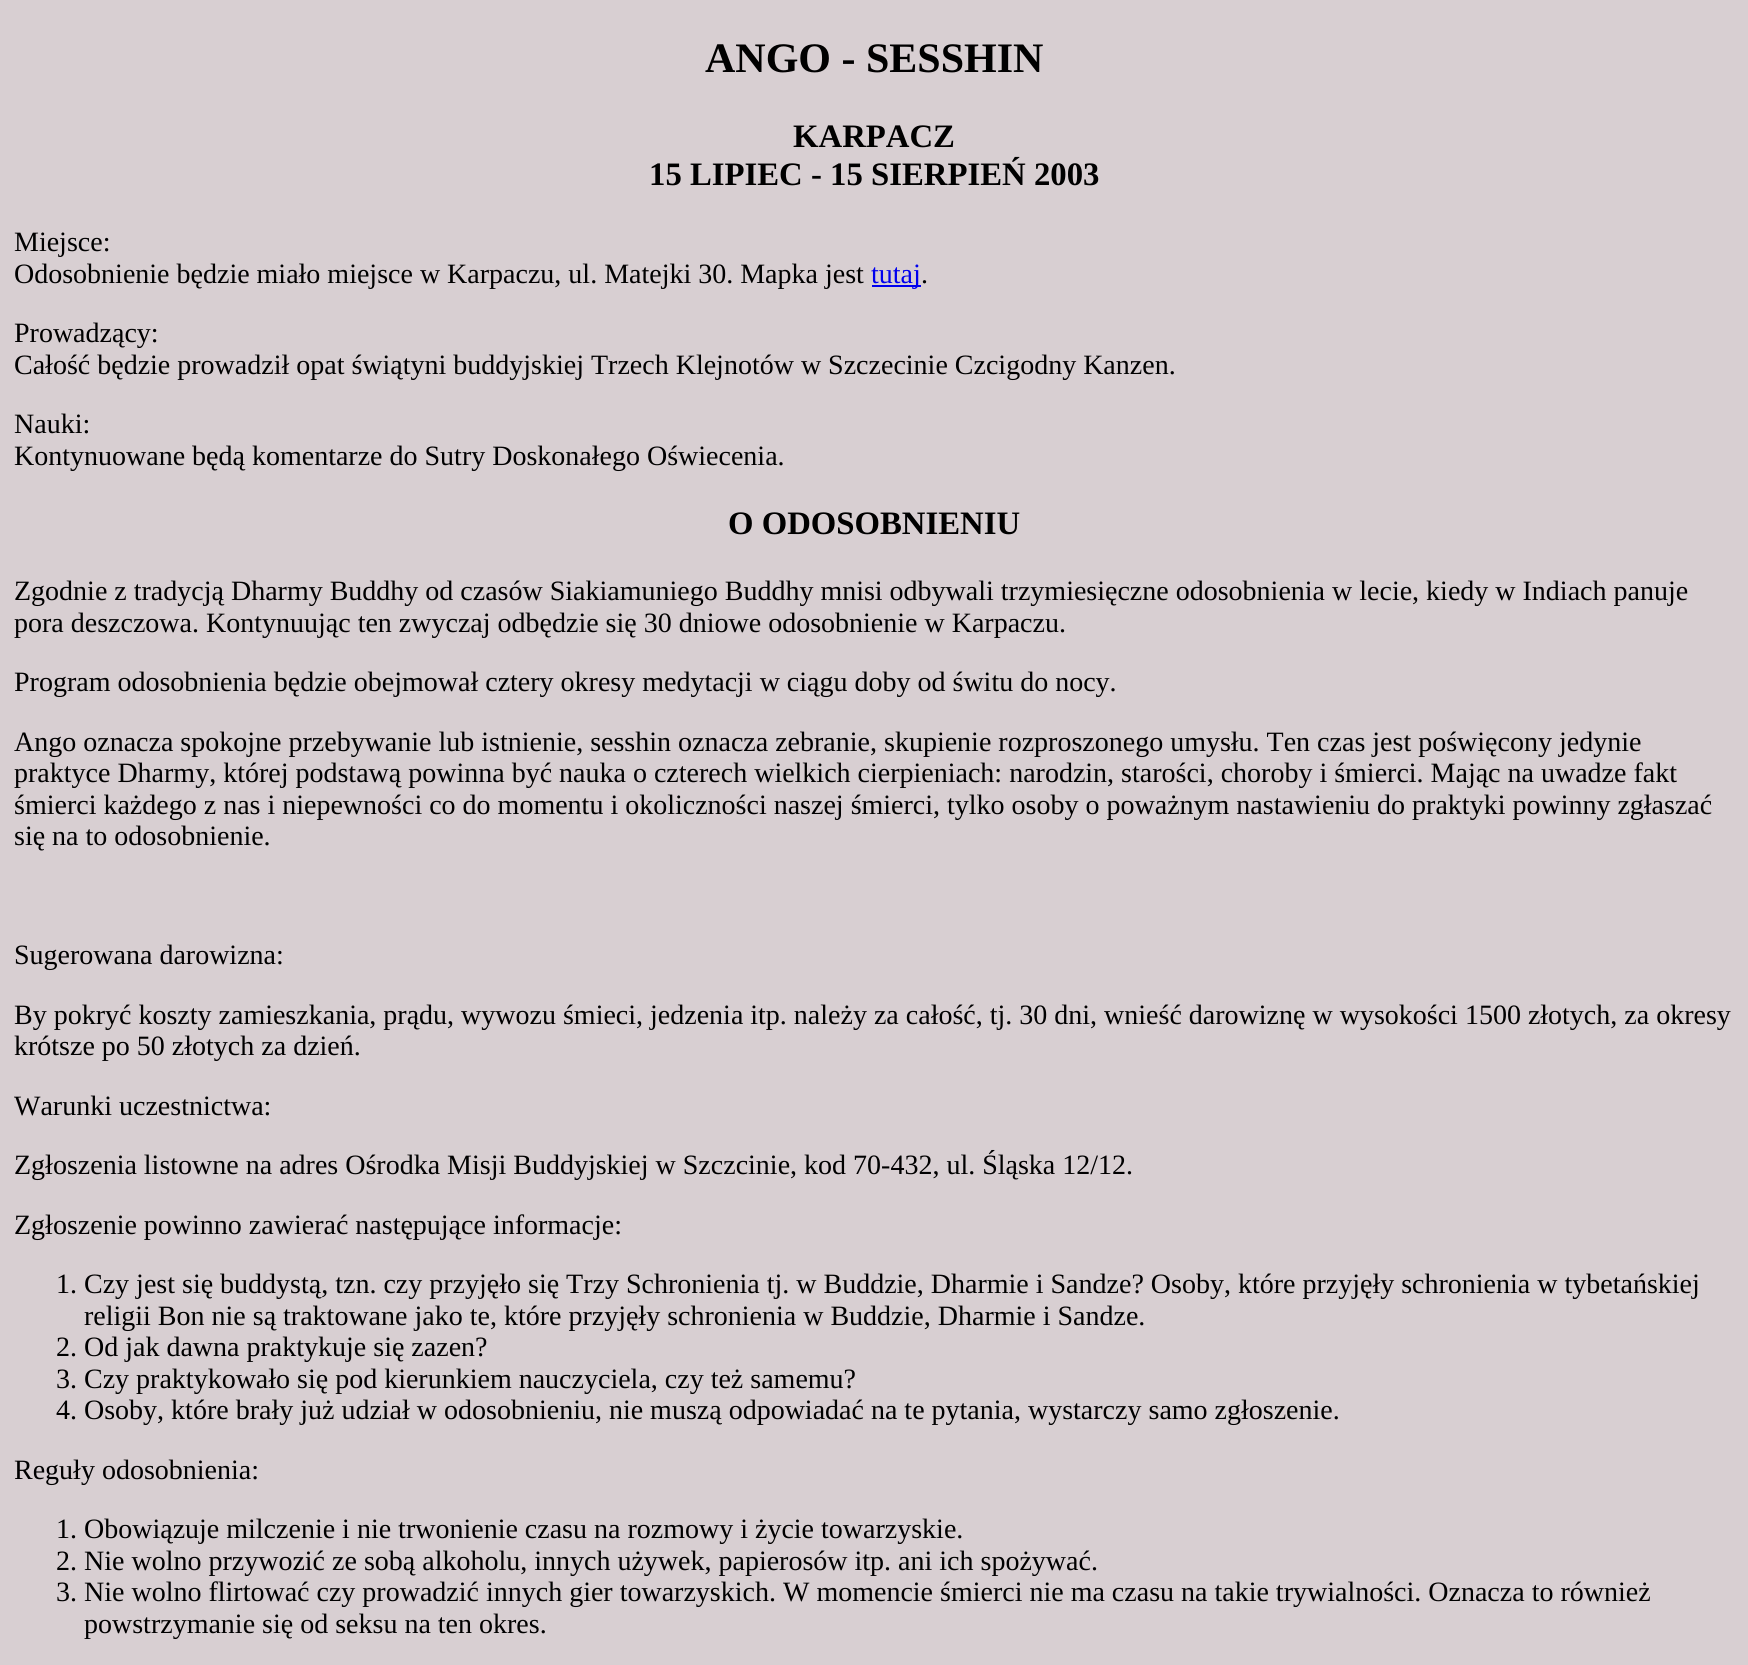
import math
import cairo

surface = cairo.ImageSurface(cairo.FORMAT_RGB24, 1748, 1665)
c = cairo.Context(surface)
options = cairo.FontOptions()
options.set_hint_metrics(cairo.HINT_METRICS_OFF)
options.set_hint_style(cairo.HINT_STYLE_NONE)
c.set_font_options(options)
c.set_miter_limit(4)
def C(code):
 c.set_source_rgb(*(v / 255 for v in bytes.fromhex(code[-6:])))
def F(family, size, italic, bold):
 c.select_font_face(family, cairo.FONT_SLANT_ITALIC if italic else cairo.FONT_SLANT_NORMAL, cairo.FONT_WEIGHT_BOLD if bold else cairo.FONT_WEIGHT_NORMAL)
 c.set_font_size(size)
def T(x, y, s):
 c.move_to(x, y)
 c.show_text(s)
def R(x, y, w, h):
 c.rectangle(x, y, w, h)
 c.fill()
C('d8cfd2')
c.paint()
F('Liberation Serif',42,0,1)
C('000000')
T(705,72,'ANGO - SESSHIN')
F('Liberation Serif',32.75,0,1)
T(793,147,'KARPACZ')
T(649,185,'15 LIPIEC - 15 SIERPIEŃ 2003')
F('Liberation Serif',28,0,0)
T(14,251,'Miejsce:')
T(14,283,'Odosobnienie będzie miało miejsce w Karpaczu, ul. Matejki 30. Mapka jest')
C('0000ee')
R(872,285,49,2)
T(871,283,'tutaj')
C('000000')
T(921,283,'.')
T(14,342,'Prowadzący:')
T(14,374,'Całość będzie prowadził opat świątyni buddyjskiej Trzech Klejnotów w Szczecinie Czcigodny Kanzen.')
T(14,433,'Nauki:')
T(14,465,'Kontynuowane będą komentarze do Sutry Doskonałego Oświecenia.')
F('Liberation Serif',32.75,0,1)
T(728,534,'O ODOSOBNIENIU')
F('Liberation Serif',28,0,0)
T(14,600,'Zgodnie z tradycją Dharmy Buddhy od czasów Siakiamuniego Buddhy mnisi odbywali trzymiesięczne odosobnienia w lecie, kiedy w Indiach panuje')
T(14,632,'pora deszczowa. Kontynuując ten zwyczaj odbędzie się 30 dniowe odosobnienie w Karpaczu.')
T(14,691,'Program odosobnienia będzie obejmował cztery okresy medytacji w ciągu doby od świtu do nocy.')
T(14,751,'Ango oznacza spokojne przebywanie lub istnienie, sesshin oznacza zebranie, skupienie rozproszonego umysłu. Ten czas jest poświęcony jedynie')
T(14,782,'praktyce Dharmy, której podstawą powinna być nauka o czterech wielkich cierpieniach: narodzin, starości, choroby i śmierci. Mając na uwadze fakt')
T(14,814,'śmierci każdego z nas i niepewności co do momentu i okoliczności naszej śmierci, tylko osoby o poważnym nastawieniu do praktyki powinny zgłaszać')
T(14,845,'się na to odosobnienie.')
T(14,964,'Sugerowana darowizna:')
T(14,1024,'By pokryć koszty zamieszkania, prądu, wywozu śmieci, jedzenia itp. należy za całość, tj. 30 dni, wnieść darowiznę w wysokości 1500 złotych, za okresy')
T(14,1055,'krótsze po 50 złotych za dzień.')
T(14,1115,'Warunki uczestnictwa:')
T(14,1174,'Zgłoszenia listowne na adres Ośrodka Misji Buddyjskiej w Szczcinie, kod 70-432, ul. Śląska 12/12.')
T(14,1234,'Zgłoszenie powinno zawierać następujące informacje:')
T(56,1293,'1. Czy jest się buddystą, tzn. czy przyjęło się Trzy Schronienia tj. w Buddzie, Dharmie i Sandze? Osoby, które przyjęły schronienia w tybetańskiej')
T(84,1325,'religii Bon nie są traktowane jako te, które przyjęły schronienia w Buddzie, Dharmie i Sandze.')
T(56,1356,'2. Od jak dawna praktykuje się zazen?')
T(56,1388,'3. Czy praktykowało się pod kierunkiem nauczyciela, czy też samemu?')
T(56,1419,'4. Osoby, które brały już udział w odosobnieniu, nie muszą odpowiadać na te pytania, wystarczy samo zgłoszenie.')
T(14,1479,'Reguły odosobnienia:')
T(56,1538,'1. Obowiązuje milczenie i nie trwonienie czasu na rozmowy i życie towarzyskie.')
T(56,1570,'2. Nie wolno przywozić ze sobą alkoholu, innych używek, papierosów itp. ani ich spożywać.')
T(56,1601,'3. Nie wolno flirtować czy prowadzić innych gier towarzyskich. W momencie śmierci nie ma czasu na takie trywialności. Oznacza to również')
T(84,1633,'powstrzymanie się od seksu na ten okres.')
surface.write_to_png('o.png')
